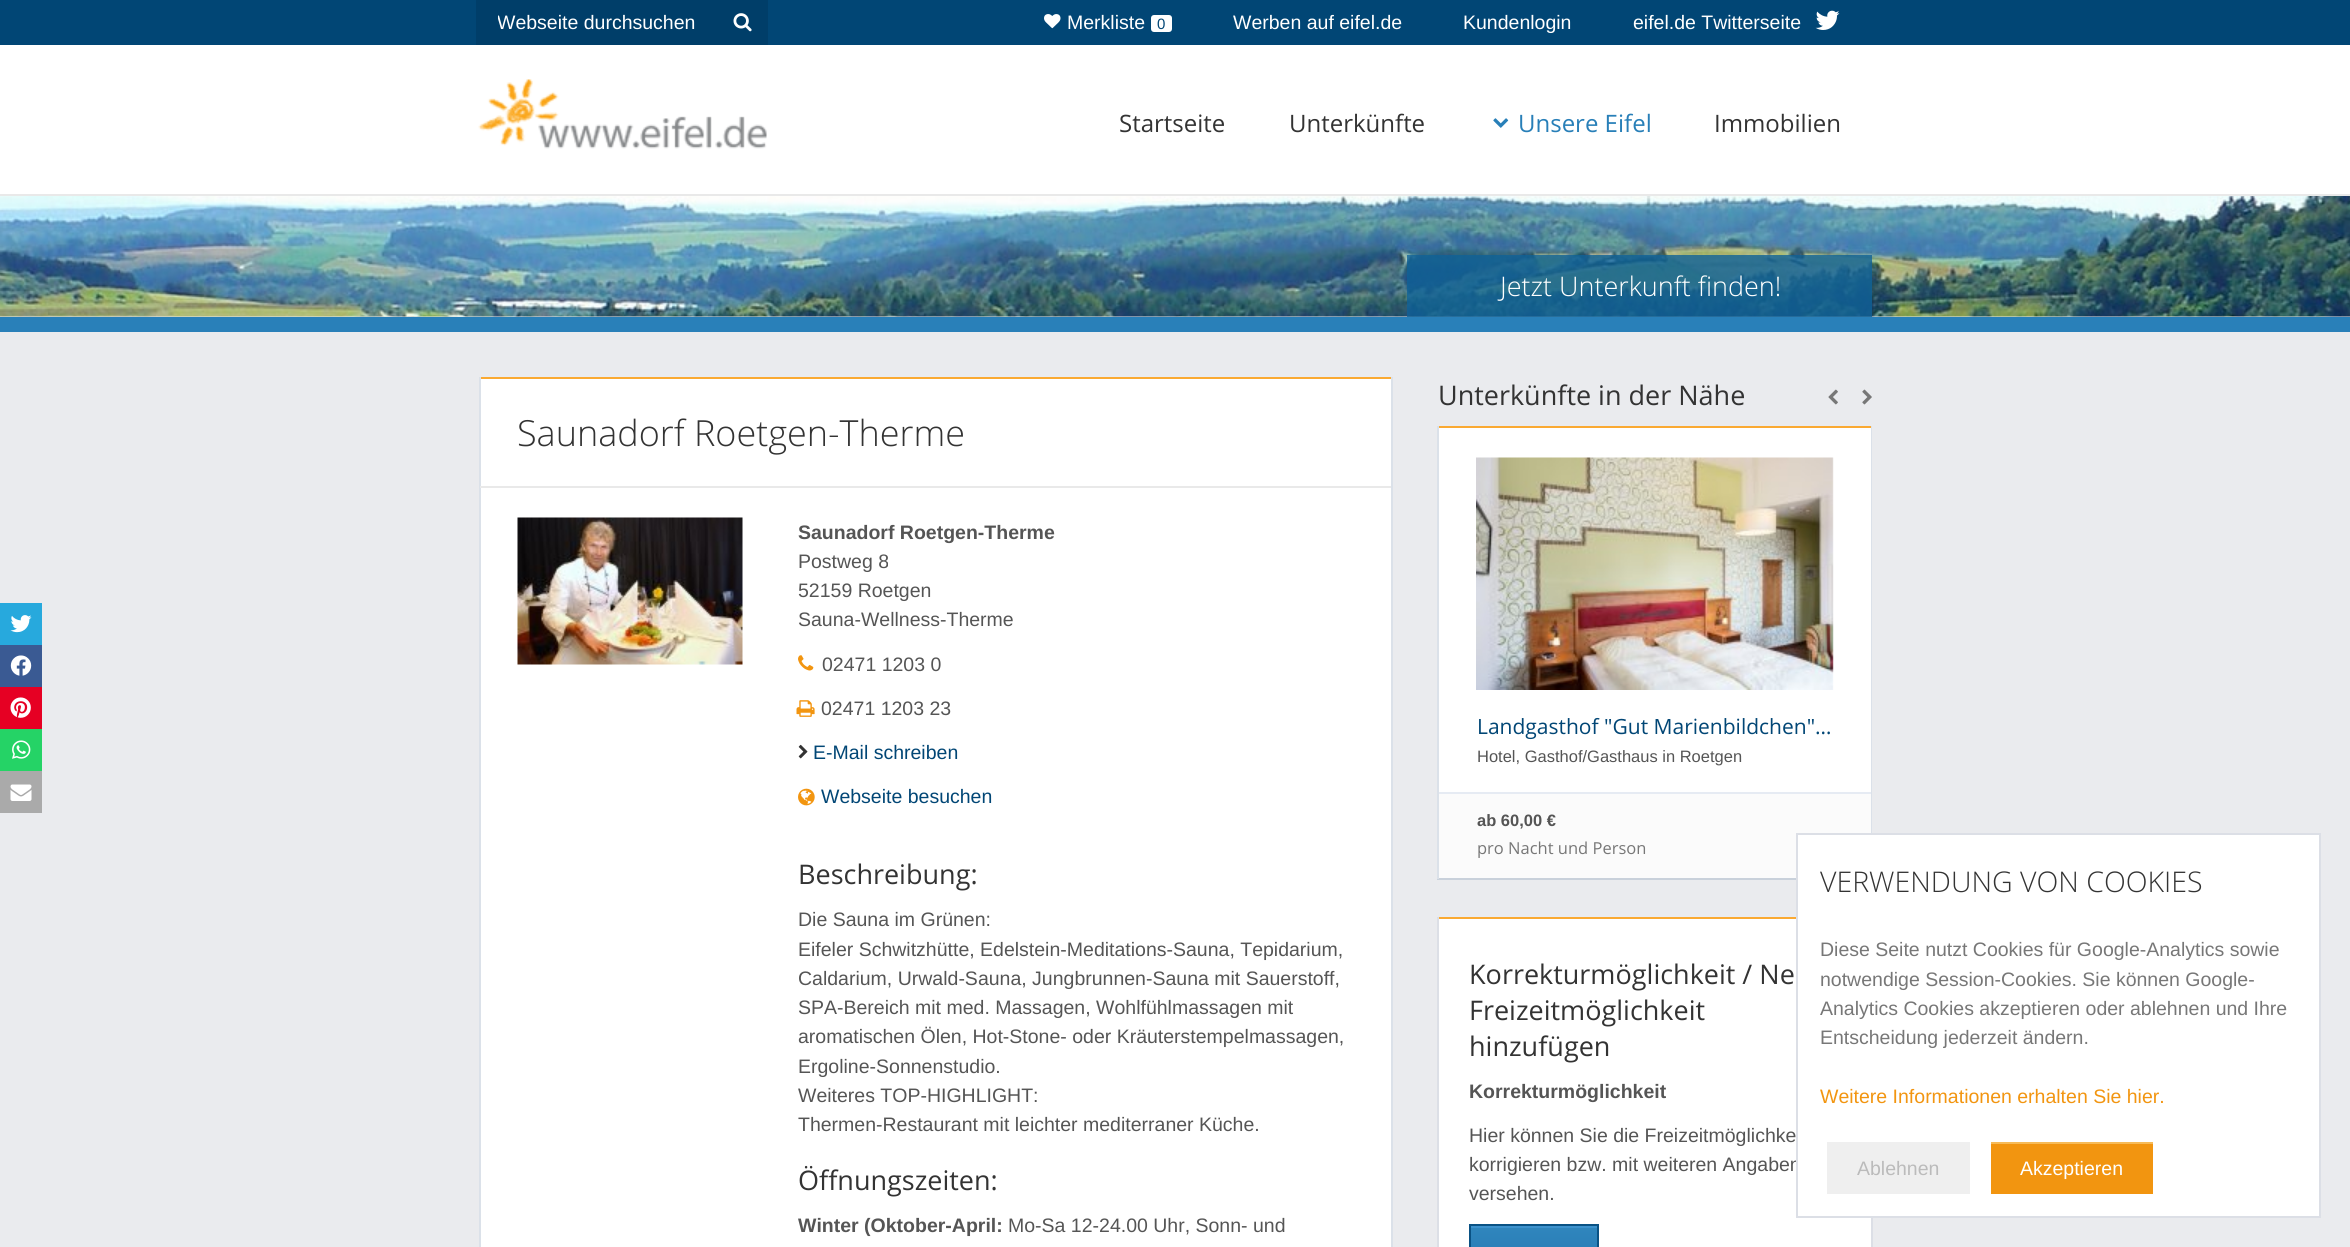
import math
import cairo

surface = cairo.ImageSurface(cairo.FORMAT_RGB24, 2350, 1247)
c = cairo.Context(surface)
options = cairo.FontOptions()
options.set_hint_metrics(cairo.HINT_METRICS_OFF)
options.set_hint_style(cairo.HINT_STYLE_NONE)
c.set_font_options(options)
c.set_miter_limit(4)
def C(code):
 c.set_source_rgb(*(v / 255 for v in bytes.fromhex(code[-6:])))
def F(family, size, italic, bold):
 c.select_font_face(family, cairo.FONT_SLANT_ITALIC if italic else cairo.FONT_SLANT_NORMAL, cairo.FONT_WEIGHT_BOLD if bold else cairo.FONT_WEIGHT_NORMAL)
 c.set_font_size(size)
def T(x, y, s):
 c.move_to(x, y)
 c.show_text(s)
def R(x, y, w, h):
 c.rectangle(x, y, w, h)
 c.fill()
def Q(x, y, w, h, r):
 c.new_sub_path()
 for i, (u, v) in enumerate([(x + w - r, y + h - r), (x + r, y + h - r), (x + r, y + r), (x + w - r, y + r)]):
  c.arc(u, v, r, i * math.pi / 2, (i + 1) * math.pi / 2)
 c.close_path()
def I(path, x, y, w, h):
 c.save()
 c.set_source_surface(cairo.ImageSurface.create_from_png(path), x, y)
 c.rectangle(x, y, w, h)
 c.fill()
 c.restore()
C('eaebee')
c.paint()
C('014675')
R(0,0,2350,45)
C('003e69')
R(476,0,292,45)
c.save()
c.rectangle(498,11,225,22)
c.clip()
F('Liberation Sans',19.5,0,0)
C('ffffff')
T(497,29,'Webseite durchsuchen')
c.restore()
I('1.png',733,13,19,19)
I('2.png',1044,14,17,15)
F('Liberation Sans',19.5,0,0)
C('ffffff')
T(1067,29,'Merkliste')
Q(1151,15,21,17,3)
c.fill()
F('Liberation Sans',15,0,0)
C('014675')
T(1157,29,'0')
F('Liberation Sans',19.5,0,0)
C('ffffff')
T(1233,29,'Werben auf eifel.de')
T(1463,29,'Kundenlogin')
T(1633,29,'eifel.de Twitterseite')
I('3.png',1815,10,25,20)
R(0,45,2350,149)
C('e9e9e9')
R(0,194,2350,2)
I('4.png',478,79,289,70)
F('Open Sans',24,0,0)
C('333333')
T(1119,132,'Startseite')
T(1289,132,'Unterkünfte')
I('5.png',1493,118,16,10)
C('287fb8')
T(1518,132,'Unsere Eifel')
C('333333')
T(1714,132,'Immobilien')
C('2980b9')
R(0,317,2350,15)
I('6.png',0,196,2350,121)
c.set_source_rgba(0.059,0.384,0.592,0.8)
R(1407,255,465,62)
F('Open Sans Light',27,0,0)
C('ffffff')
T(1500,296,'Jetzt Unterkunft finden!')
C('27a9dd')
R(0,603,42,42)
I('7.png',10,615,22,18)
C('3a5a93')
R(0,645,42,42)
I('8.png',10,655,22,21)
C('e60023')
R(0,687,42,42)
I('9.png',10,697,21,21)
C('25d366')
R(0,729,42,42)
I('10.png',12,740,19,19)
C('aaaaaa')
R(0,771,42,42)
I('11.png',10,784,22,17)
C('ffffff')
R(481,379,910,868)
C('faa932')
R(479,377,913,2)
C('dbe1e9')
R(1391,377,2,870)
R(479,377,2,870)
F('Open Sans Light',36,0,0)
C('333333')
T(517,446,'Saunadorf Roetgen-Therme')
C('e9e9e9')
R(480,486,911,2)
I('12.png',517,517,226,148)
F('Liberation Sans',19.5,0,1)
C('555555')
T(798,539,'Saunadorf Roetgen-Therme')
F('Liberation Sans',19.5,0,0)
T(798,568,'Postweg 8')
T(798,597,'52159 Roetgen')
T(798,626,'Sauna-Wellness-Therme')
I('13.png',798,655,16,16)
T(822,671,'02471 1203 0')
I('14.png',796,700,19,17)
T(821,715,'02471 1203 23')
I('15.png',798,744,10,15)
C('014675')
T(813,759,'E-Mail schreiben')
I('16.png',798,788,17,18)
T(821,803,'Webseite besuchen')
F('Open Sans',27,0,0)
C('333333')
T(798,884,'Beschreibung:')
F('Liberation Sans',19.5,0,0)
C('555555')
T(798,926,'Die Sauna im Grünen:')
T(798,956,'Eifeler Schwitzhütte, Edelstein-Meditations-Sauna, Tepidarium,')
T(798,985,'Caldarium, Urwald-Sauna, Jungbrunnen-Sauna mit Sauerstoff,')
T(798,1014,'SPA-Bereich mit med. Massagen, Wohlfühlmassagen mit')
T(798,1043,'aromatischen Ölen, Hot-Stone- oder Kräuterstempelmassagen,')
T(798,1073,'Ergoline-Sonnenstudio.')
T(798,1102,'Weiteres TOP-HIGHLIGHT:')
T(798,1131,'Thermen-Restaurant mit leichter mediterraner Küche.')
F('Open Sans',27,0,0)
C('333333')
T(798,1190,'Öffnungszeiten:')
F('Liberation Sans',19.5,0,1)
C('555555')
T(798,1232,'Winter (Oktober-April:')
F('Liberation Sans',19.5,0,0)
T(1008,1232,'Mo-Sa 12-24.00 Uhr, Sonn- und')
F('Open Sans',27,0,0)
C('333333')
T(1438,405,'Unterkünfte in der Nähe')
I('17.png',1828,389,10,16)
I('18.png',1862,389,10,16)
C('ffffff')
R(1439,428,432,364)
C('faa932')
R(1437,426,435,2)
C('dbe1e9')
R(1871,426,1,407)
C('c9d1db')
R(1437,878,359,2)
C('dbe1e9')
R(1437,426,2,453)
I('19.png',1476,457,358,233)
F('Open Sans',21,0,0)
C('014675')
T(1477,734,'Landgasthof "Gut Marienbildchen"…')
F('Liberation Sans',16.5,0,0)
C('555555')
T(1477,762,'Hotel, Gasthof/Gasthaus in Roetgen')
C('fbfbfb')
R(1439,794,432,84)
C('e6ebf3')
R(1439,792,432,2)
F('Liberation Sans',16.5,0,1)
C('555555')
T(1477,826,'ab 60,00 €')
F('Open Sans',16.5,0,0)
C('777777')
T(1477,854,'pro Nacht und Person')
C('ffffff')
R(1439,919,432,328)
C('faa932')
R(1437,917,359,2)
C('dcdfe6')
R(1871,1218,2,29)
R(1437,917,2,330)
F('Open Sans',27,0,0)
C('333333')
T(1469,984,'Korrekturmöglichkeit / Ne')
T(1469,1020,'Freizeitmöglichkeit')
T(1469,1056,'hinzufügen')
F('Liberation Sans',19.5,0,1)
C('555555')
T(1469,1098,'Korrekturmöglichkeit')
F('Liberation Sans',19.5,0,0)
T(1469,1142,'Hier können Sie die Freizeitmöglichke')
T(1469,1171,'korrigieren bzw. mit weiteren Angaben')
T(1469,1200,'versehen.')
gradient = cairo.LinearGradient(1534,1226,1534,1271)
gradient.add_color_stop_rgba(0,0.188,0.525,0.741,1)
gradient.add_color_stop_rgba(1,0.145,0.475,0.702,1)
c.set_source(gradient)
R(1471,1228,126,19)
C('3d92cd')
R(1470,1226,128,2)
c.rectangle(1470,1225,128,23)
C('0a5284')
c.stroke()
C('ffffff')
c.rectangle(1797,834,523,383)
c.fill_preserve()
C('dcdfe6')
c.stroke()
F('Open Sans Light',28.5,0,0)
C('333333')
T(1820,892,'VERWENDUNG VON COOKIES')
F('Liberation Sans',19.5,0,0)
C('777777')
T(1820,956,'Diese Seite nutzt Cookies für Google-Analytics sowie')
T(1820,986,'notwendige Session-Cookies. Sie können Google-')
T(1820,1015,'Analytics Cookies akzeptieren oder ablehnen und Ihre')
T(1820,1044,'Entscheidung jederzeit ändern.')
C('f29510')
T(1820,1103,'Weitere Informationen erhalten Sie hier.')
C('efefef')
R(1827,1142,143,52)
C('bbbbbb')
T(1857,1175,'Ablehnen')
C('f29510')
R(1991,1144,162,50)
C('f7bb58')
R(1991,1142,162,2)
C('ffffff')
T(2020,1175,'Akzeptieren')
surface.write_to_png('o.png')
